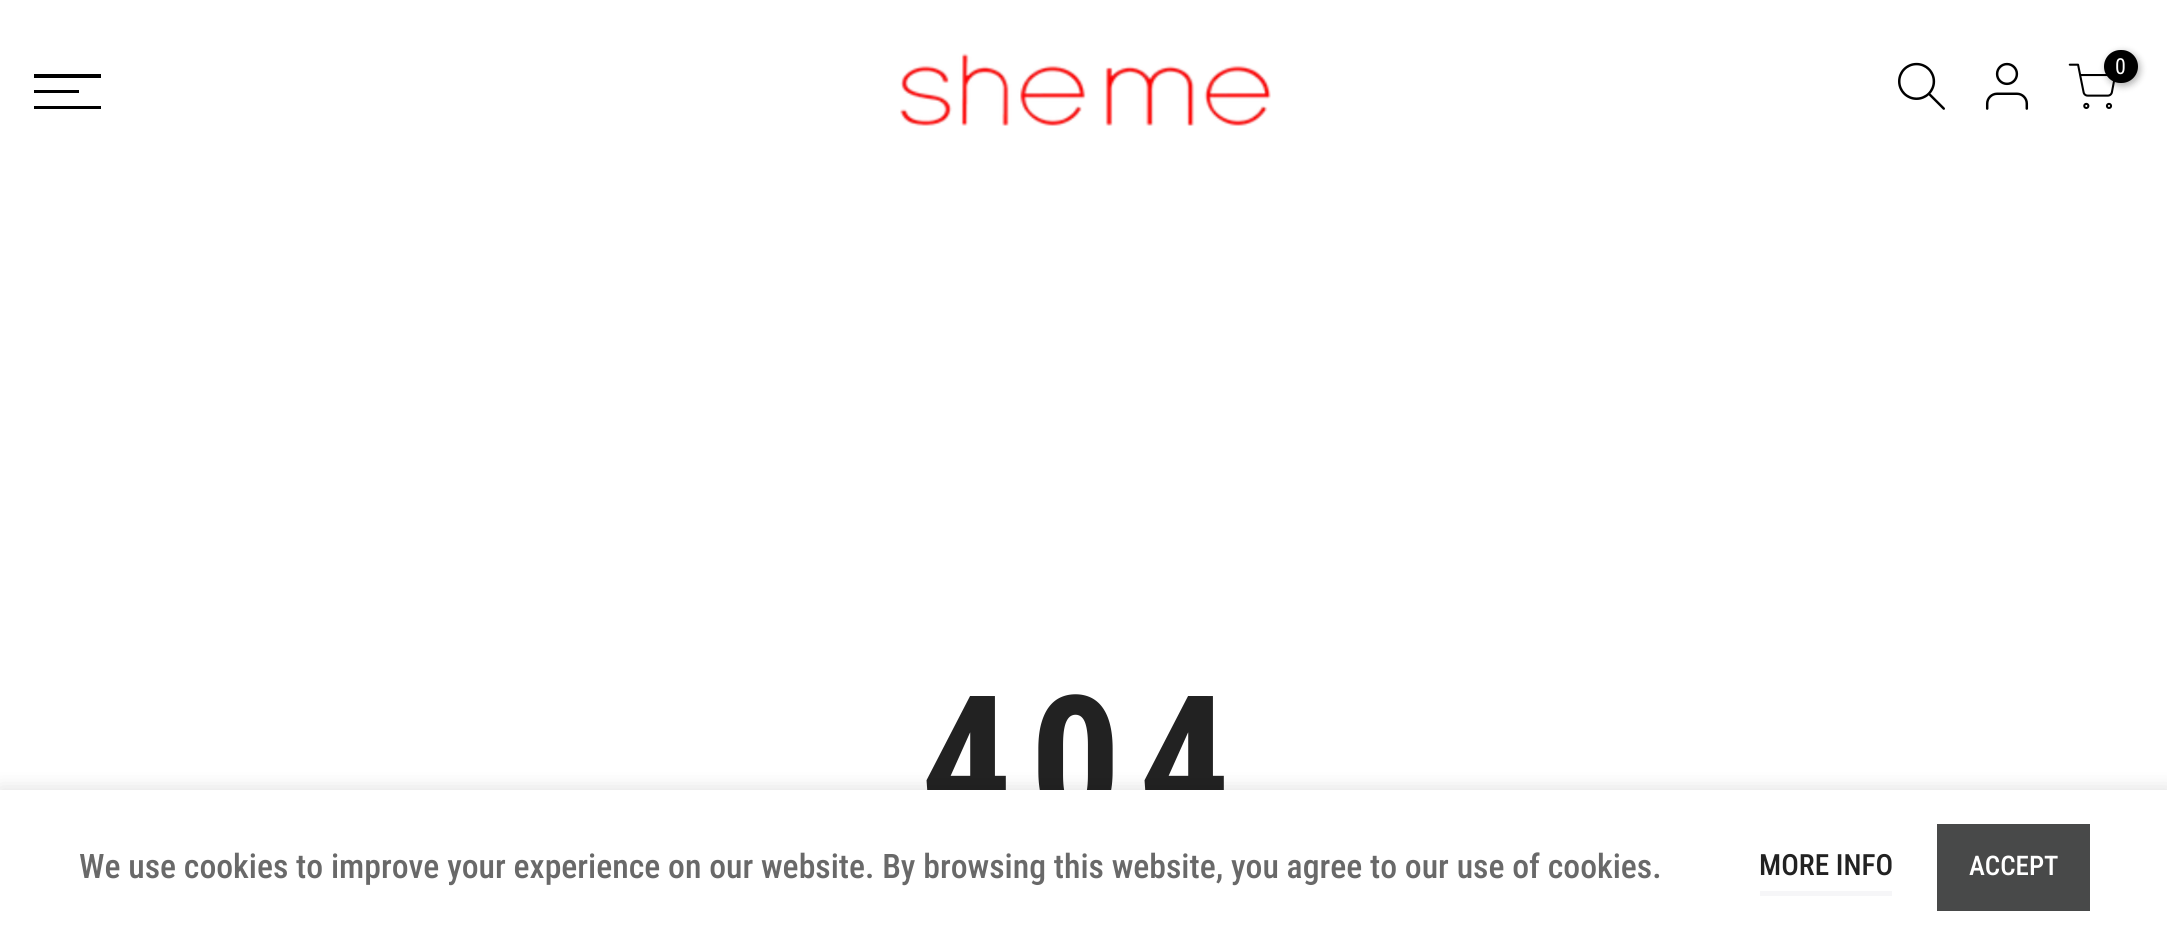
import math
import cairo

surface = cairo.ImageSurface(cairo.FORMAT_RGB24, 2167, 944)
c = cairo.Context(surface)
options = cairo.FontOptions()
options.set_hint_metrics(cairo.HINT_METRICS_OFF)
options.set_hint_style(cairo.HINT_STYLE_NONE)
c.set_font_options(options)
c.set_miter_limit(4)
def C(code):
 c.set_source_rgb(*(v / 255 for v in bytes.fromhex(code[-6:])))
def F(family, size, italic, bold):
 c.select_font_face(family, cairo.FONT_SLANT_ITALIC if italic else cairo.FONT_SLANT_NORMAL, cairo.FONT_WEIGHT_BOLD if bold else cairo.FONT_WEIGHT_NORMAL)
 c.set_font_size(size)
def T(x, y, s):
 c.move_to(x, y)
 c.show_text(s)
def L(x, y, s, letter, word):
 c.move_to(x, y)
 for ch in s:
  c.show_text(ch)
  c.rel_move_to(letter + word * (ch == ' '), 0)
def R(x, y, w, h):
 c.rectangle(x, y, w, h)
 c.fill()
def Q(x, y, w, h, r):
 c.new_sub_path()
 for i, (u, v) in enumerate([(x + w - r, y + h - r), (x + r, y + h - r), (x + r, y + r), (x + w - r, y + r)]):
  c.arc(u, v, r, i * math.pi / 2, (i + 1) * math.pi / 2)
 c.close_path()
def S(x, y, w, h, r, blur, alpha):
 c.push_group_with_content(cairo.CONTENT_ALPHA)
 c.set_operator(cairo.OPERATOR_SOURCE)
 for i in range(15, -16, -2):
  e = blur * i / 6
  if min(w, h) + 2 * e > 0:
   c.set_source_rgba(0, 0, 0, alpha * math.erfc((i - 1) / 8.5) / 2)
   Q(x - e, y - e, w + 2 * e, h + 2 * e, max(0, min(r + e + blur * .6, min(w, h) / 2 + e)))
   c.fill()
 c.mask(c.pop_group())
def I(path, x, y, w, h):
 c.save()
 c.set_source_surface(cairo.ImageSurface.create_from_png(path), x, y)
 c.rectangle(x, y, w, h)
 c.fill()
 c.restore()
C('ffffff')
c.paint()
I('1.png',900,53,371,73)
I('2.png',1898,62,47,48)
I('3.png',1985,62,44,48)
I('4.png',2068,63,47,46)
C('000000')
S(2106,52,34,34,17,3.5,.3)
C('000000')
Q(2104,50,34,33,16.5)
c.fill()
F('Roboto Condensed',22,0,0)
C('ffffff')
T(2115,74,'0')
C('000000')
R(34,74,67,4)
R(34,90,45,3)
R(34,106,67,3)
F('Roboto Condensed',180,0,1)
C('222222')
L(921,824,'404',18,0)
C('000000')
S(0,790,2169,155,0,10,.14)
C('ffffff')
R(0,790,2167,154)
F('Roboto Condensed Medium',33.75,0,0)
C('696969')
T(79,878,'We use cookies to improve your experience on our website. By browsing this website, you agree to our use of cookies.')
C('f6f6f8')
R(1760,891,132,5)
F('Roboto Condensed Medium',29.25,0,0)
C('222222')
T(1759,875,'MORE INFO')
C('484949')
R(1937,824,153,87)
F('Roboto Condensed Medium',27,0,0)
C('ffffff')
T(1969,875,'ACCEPT')
surface.write_to_png('o.png')
